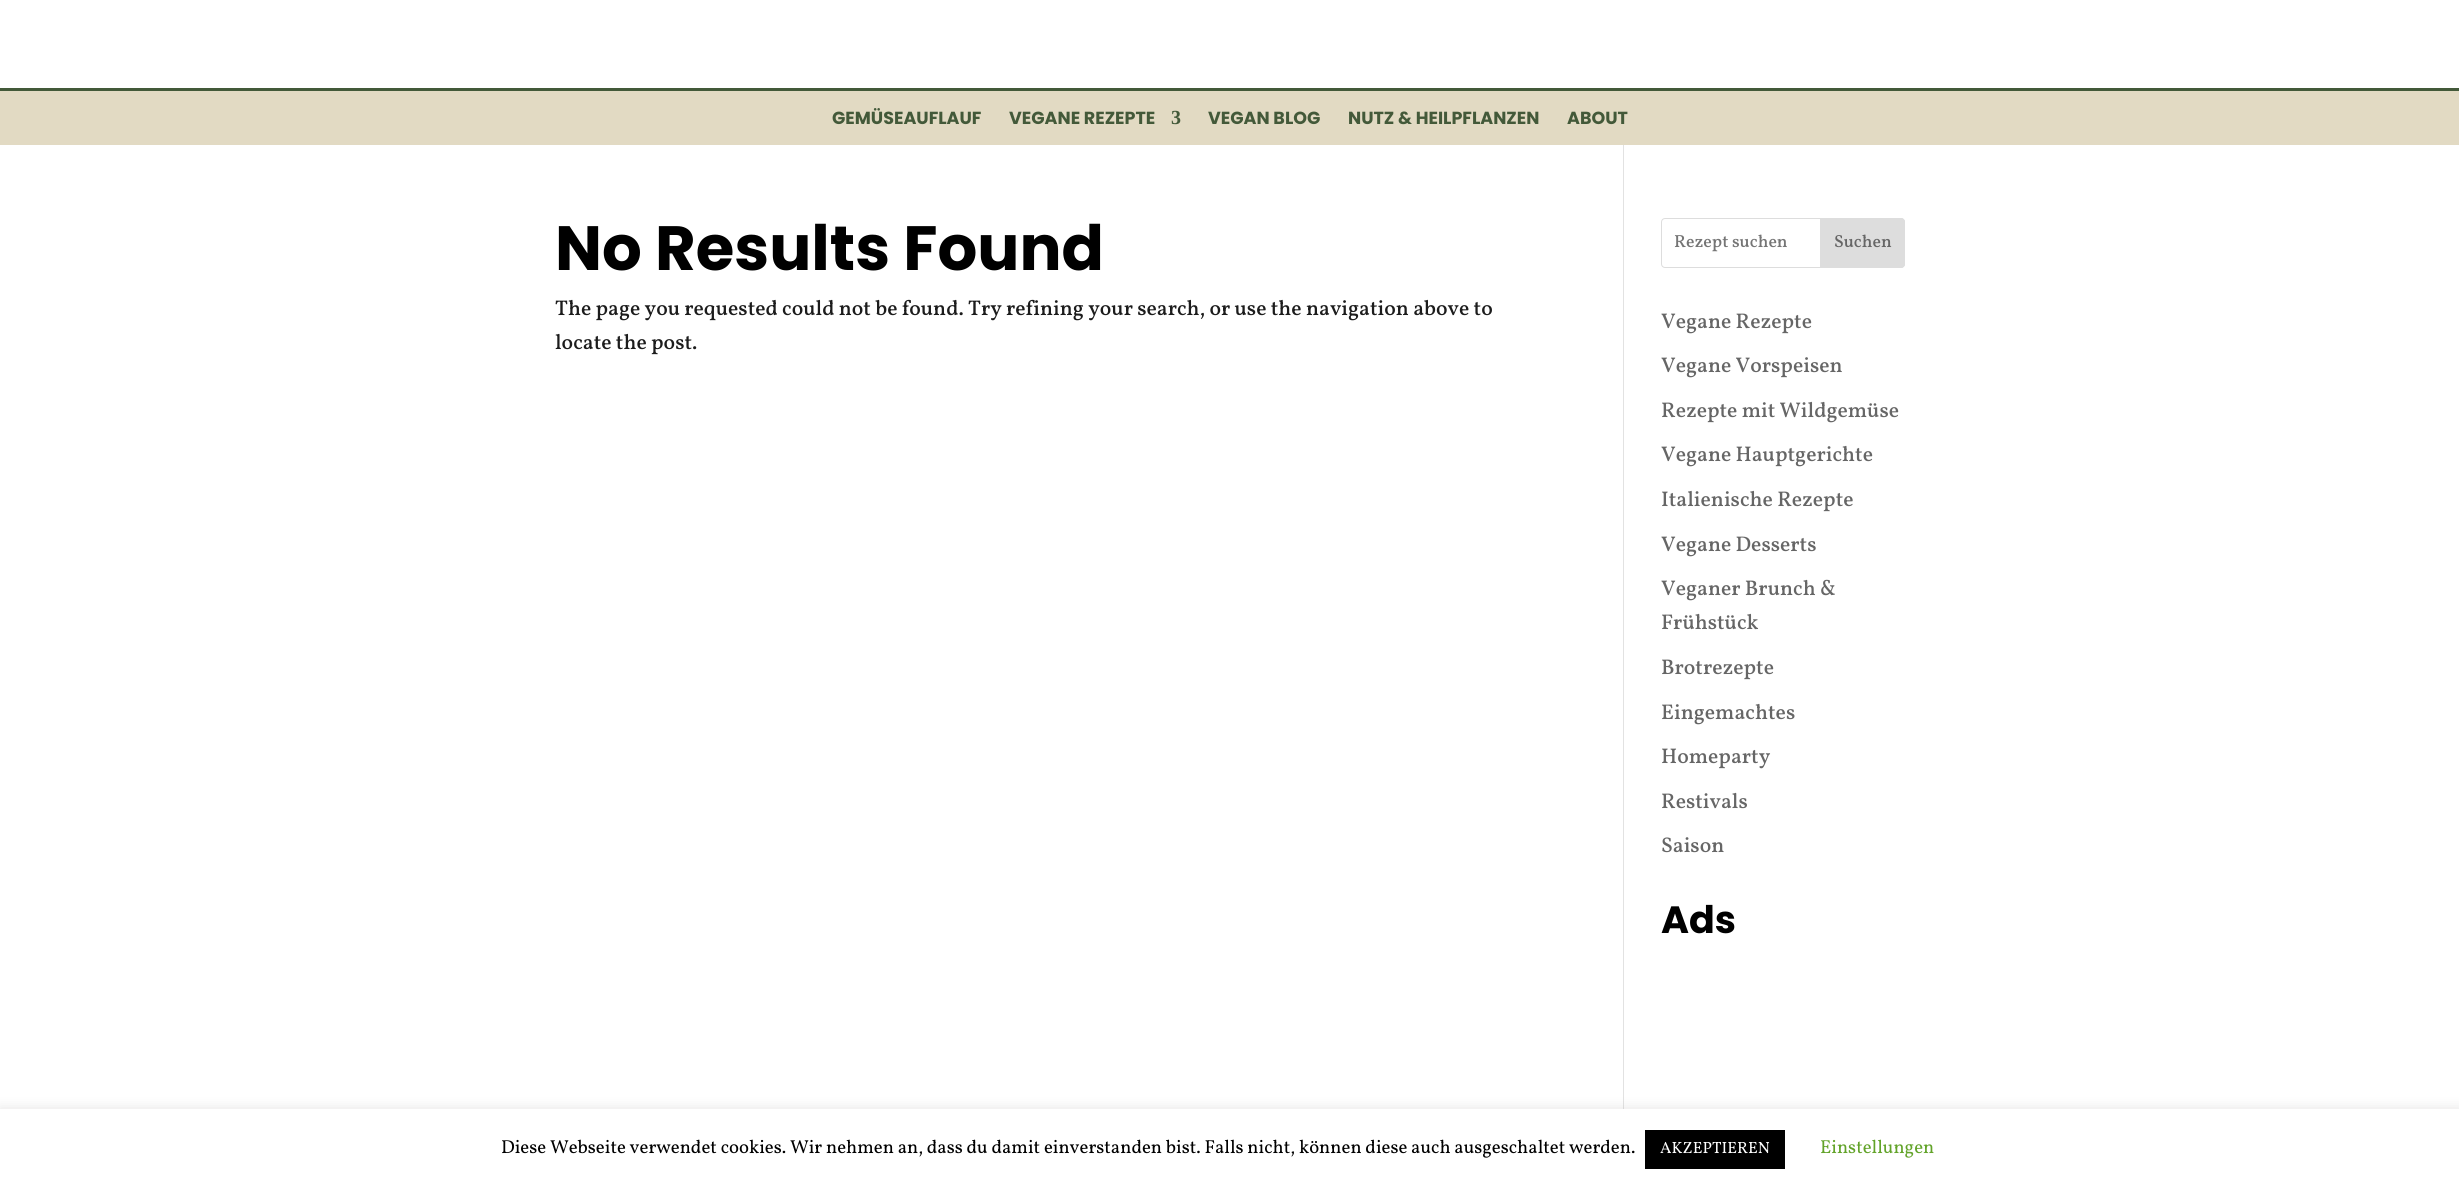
import math
import cairo

surface = cairo.ImageSurface(cairo.FORMAT_RGB24, 2459, 1190)
c = cairo.Context(surface)
options = cairo.FontOptions()
options.set_hint_metrics(cairo.HINT_METRICS_OFF)
options.set_hint_style(cairo.HINT_STYLE_NONE)
c.set_font_options(options)
c.set_miter_limit(4)
def C(code):
 c.set_source_rgb(*(v / 255 for v in bytes.fromhex(code[-6:])))
def F(family, size, italic, bold):
 c.select_font_face(family, cairo.FONT_SLANT_ITALIC if italic else cairo.FONT_SLANT_NORMAL, cairo.FONT_WEIGHT_BOLD if bold else cairo.FONT_WEIGHT_NORMAL)
 c.set_font_size(size)
def T(x, y, s):
 c.move_to(x, y)
 c.show_text(s)
def R(x, y, w, h):
 c.rectangle(x, y, w, h)
 c.fill()
def Q(x, y, w, h, r):
 c.new_sub_path()
 for i, (u, v) in enumerate([(x + w - r, y + h - r), (x + r, y + h - r), (x + r, y + r), (x + w - r, y + r)]):
  c.arc(u, v, r, i * math.pi / 2, (i + 1) * math.pi / 2)
 c.close_path()
def S(x, y, w, h, r, blur, alpha):
 c.push_group_with_content(cairo.CONTENT_ALPHA)
 c.set_operator(cairo.OPERATOR_SOURCE)
 for i in range(15, -16, -2):
  e = blur * i / 6
  if min(w, h) + 2 * e > 0:
   c.set_source_rgba(0, 0, 0, alpha * math.erfc((i - 1) / 8.5) / 2)
   Q(x - e, y - e, w + 2 * e, h + 2 * e, max(0, min(r + e + blur * .6, min(w, h) / 2 + e)))
   c.fill()
 c.mask(c.pop_group())
C('ffffff')
c.paint()
C('e2dac3')
R(0,91,2459,54)
C('435939')
R(0,88,2459,3)
F('Poppins',17.5,0,1)
T(832,124,'GEMÜSEAUFLAUF')
T(1009,124,'VEGANE REZEPTE')
F('Liberation Serif',20,0,1)
T(1171,124,'3')
F('Poppins',17.5,0,1)
T(1208,124,'VEGAN BLOG')
T(1348,124,'NUTZ & HEILPFLANZEN')
T(1567,124,'ABOUT')
C('e2e2e2')
R(1623,145,1,964)
F('Poppins',62.5,0,1)
C('000000')
T(555,270,'No Results Found')
F('Vollkorn Medium',21.25,0,0)
C('1c1c1c')
T(555,315,'The page you requested could not be found. Try refining your search, or use the navigation above to')
T(555,349,'locate the post.')
Q(1661.5,218.5,243,49,3.5)
C('dddddd')
c.set_line_width(1)
c.stroke()
F('Vollkorn Medium',17.5,0,0)
C('757575')
T(1674,247,'Rezept suchen')
C('dddddd')
c.new_path()
c.move_to(1820.5,218.5)
c.line_to(1901,218.5)
c.curve_to(1903,218.5,1904.5,220,1904.5,222)
c.line_to(1904.5,264)
c.curve_to(1904.5,266,1903,267.5,1901,267.5)
c.line_to(1820.5,267.5)
c.close_path()
c.fill_preserve()
c.stroke()
C('666666')
T(1834,247,'Suchen')
F('Vollkorn Medium',21.25,0,0)
T(1661,328,'Vegane Rezepte')
T(1661,372,'Vegane Vorspeisen')
T(1661,417,'Rezepte mit Wildgemüse')
T(1661,461,'Vegane Hauptgerichte')
T(1661,506,'Italienische Rezepte')
T(1661,551,'Vegane Desserts')
T(1661,595,'Veganer Brunch &')
T(1661,629,'Frühstück')
T(1661,674,'Brotrezepte')
T(1661,719,'Eingemachtes')
T(1661,763,'Homeparty')
T(1661,808,'Restivals')
T(1661,852,'Saison')
F('Poppins',38,0,1)
C('000000')
T(1661,933,'Ads')
C('acabab')
S(0,1108,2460,81,0,6,.3)
C('ffffff')
R(0,1109,2459,81)
F('Vollkorn',18.75,0,0)
C('000000')
T(501,1153,'Diese Webseite verwendet cookies. Wir nehmen an, dass du damit einverstanden bist. Falls nicht, können diese auch ausgeschaltet werden.')
R(1645,1130,140,39)
F('Vollkorn',16.25,0,0)
C('ffffff')
T(1660,1153,'AKZEPTIEREN')
F('Vollkorn',18.75,0,0)
C('62a329')
T(1820,1153,'Einstellungen')
surface.write_to_png('o.png')
